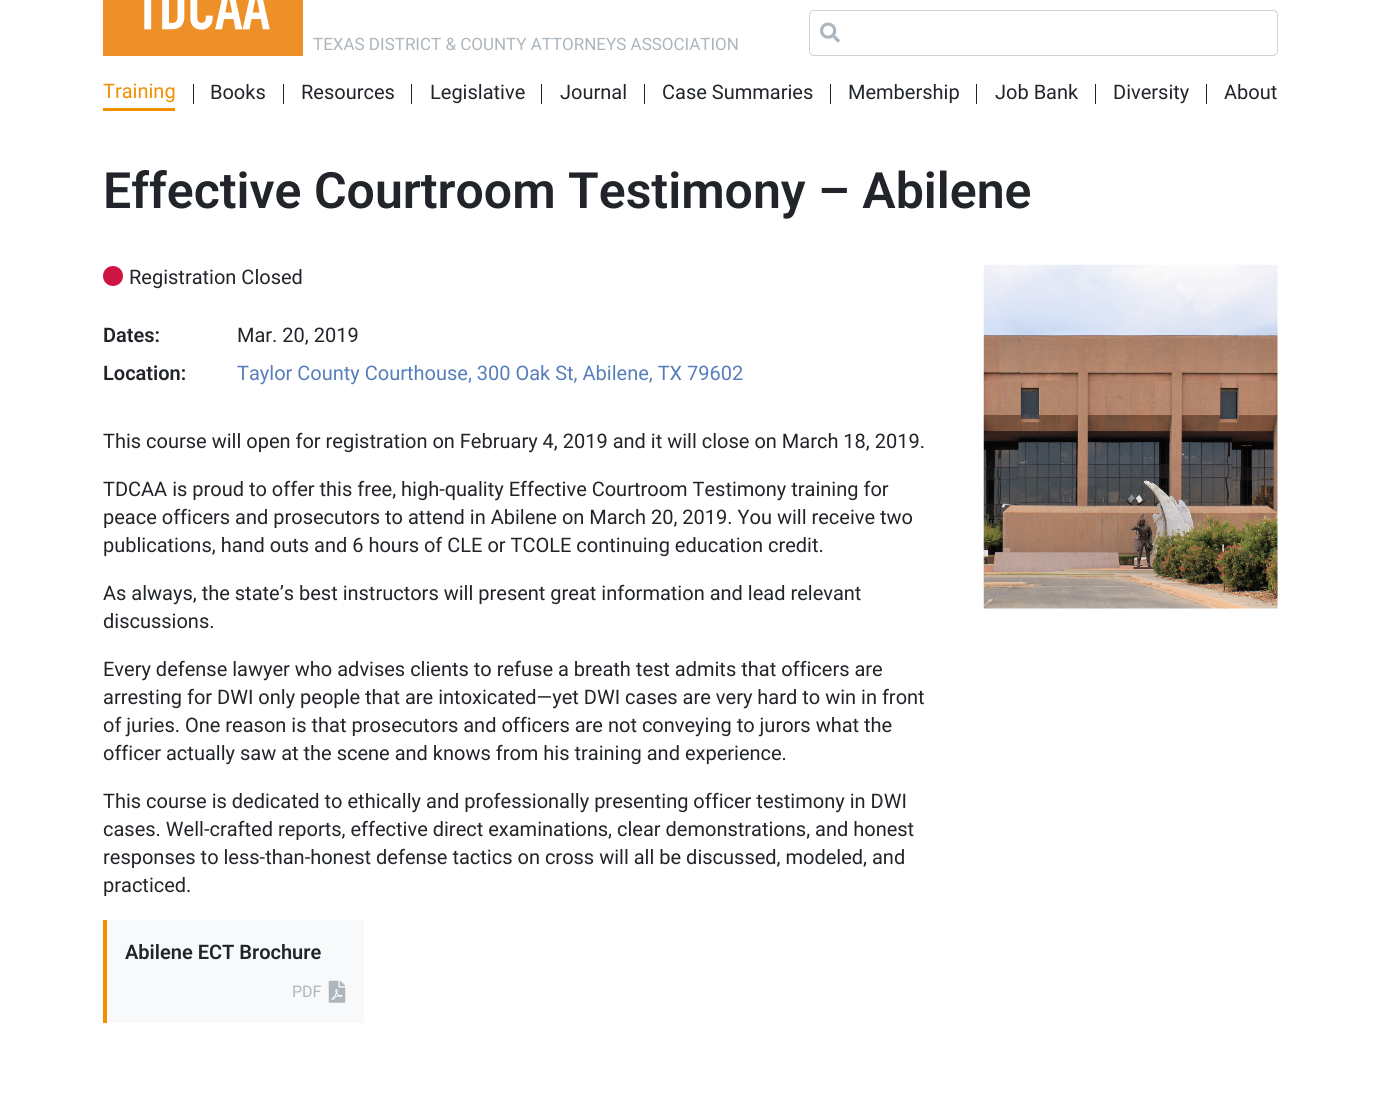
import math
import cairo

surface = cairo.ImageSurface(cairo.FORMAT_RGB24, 1380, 1112)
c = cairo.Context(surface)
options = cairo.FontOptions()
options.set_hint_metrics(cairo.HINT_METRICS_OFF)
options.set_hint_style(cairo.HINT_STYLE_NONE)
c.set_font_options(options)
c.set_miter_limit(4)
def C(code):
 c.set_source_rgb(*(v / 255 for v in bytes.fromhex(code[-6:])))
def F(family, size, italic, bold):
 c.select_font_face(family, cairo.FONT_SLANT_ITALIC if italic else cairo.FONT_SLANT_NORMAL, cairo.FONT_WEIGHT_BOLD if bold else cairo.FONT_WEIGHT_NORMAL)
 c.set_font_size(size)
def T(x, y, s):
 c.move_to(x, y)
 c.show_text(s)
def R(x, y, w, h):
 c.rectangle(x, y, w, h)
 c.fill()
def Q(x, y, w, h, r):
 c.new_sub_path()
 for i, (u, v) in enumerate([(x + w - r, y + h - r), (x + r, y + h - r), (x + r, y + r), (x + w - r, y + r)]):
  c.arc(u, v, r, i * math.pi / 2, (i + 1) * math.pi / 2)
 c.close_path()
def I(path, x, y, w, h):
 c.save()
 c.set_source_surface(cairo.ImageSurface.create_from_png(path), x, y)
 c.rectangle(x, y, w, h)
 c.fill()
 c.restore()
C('ffffff')
c.paint()
I('1.png',103,0,200,56)
F('Roboto',17,0,0)
C('adb5bd')
T(313,50,'TEXAS DISTRICT & COUNTY ATTORNEYS ASSOCIATION')
Q(809.5,10.5,468,45,4.5)
C('ced4da')
c.set_line_width(1)
c.stroke()
I('2.png',820,22,20,21)
C('f18f01')
R(103,108,72,3)
F('Roboto',20,0,0)
T(103,98,'Training')
C('212529')
R(193,84,1,20)
T(210,99,'Books')
R(283,84,1,20)
T(301,99,'Resources')
R(411,84,1,20)
T(430,99,'Legislative')
R(541,84,1,20)
T(560,99,'Journal')
R(644,84,1,20)
T(662,99,'Case Summaries')
R(830,84,1,20)
T(848,99,'Membership')
R(976,84,1,20)
T(995,99,'Job Bank')
R(1095,84,1,20)
T(1113,99,'Diversity')
R(1206,84,1,20)
T(1224,99,'About')
F('Roboto SemiBold',50,0,0)
T(103,208,'Effective Courtroom Testimony – Abilene')
C('cd1443')
c.new_path()
c.arc(113,276,10,0,2 * math.pi)
c.fill()
F('Roboto',20,0,0)
C('212529')
T(129,284,'Registration Closed')
F('Roboto SemiBold',20,0,0)
T(103,342,'Dates:')
F('Roboto',20,0,0)
T(237,342,'Mar. 20, 2019')
F('Roboto SemiBold',20,0,0)
T(103,380,'Location:')
F('Roboto',20,0,0)
C('577ebc')
T(237,380,'Taylor County Courthouse, 300 Oak St, Abilene, TX 79602')
C('212529')
T(103,448,'This course will open for registration on February 4, 2019 and it will close on March 18, 2019.')
T(103,496,'TDCAA is proud to offer this free, high-quality Effective Courtroom Testimony training for')
T(103,524,'peace officers and prosecutors to attend in Abilene on March 20, 2019. You will receive two')
T(103,552,'publications, hand outs and 6 hours of CLE or TCOLE continuing education credit.')
T(103,600,'As always, the state’s best instructors will present great information and lead relevant')
T(103,628,'discussions.')
T(103,676,'Every defense lawyer who advises clients to refuse a breath test admits that officers are')
T(103,704,'arresting for DWI only people that are intoxicated—yet DWI cases are very hard to win in front')
T(103,732,'of juries. One reason is that prosecutors and officers are not conveying to jurors what the')
T(103,760,'officer actually saw at the scene and knows from his training and experience.')
T(103,808,'This course is dedicated to ethically and professionally presenting officer testimony in DWI')
T(103,836,'cases. Well-crafted reports, effective direct examinations, clear demonstrations, and honest')
T(103,864,'responses to less-than-honest defense tactics on cross will all be discussed, modeled, and')
T(103,892,'practiced.')
C('f8f9fa')
R(107,920,257,103)
C('f18f01')
R(103,920,4,103)
F('Roboto SemiBold',20,0,0)
C('212529')
T(125,959,'Abilene ECT Brochure')
F('Roboto',16,0,0)
C('adb5bd')
T(292,997,'PDF')
I('3.png',328,980,18,23)
I('4.png',983,264,295,345)
surface.write_to_png('o.png')
